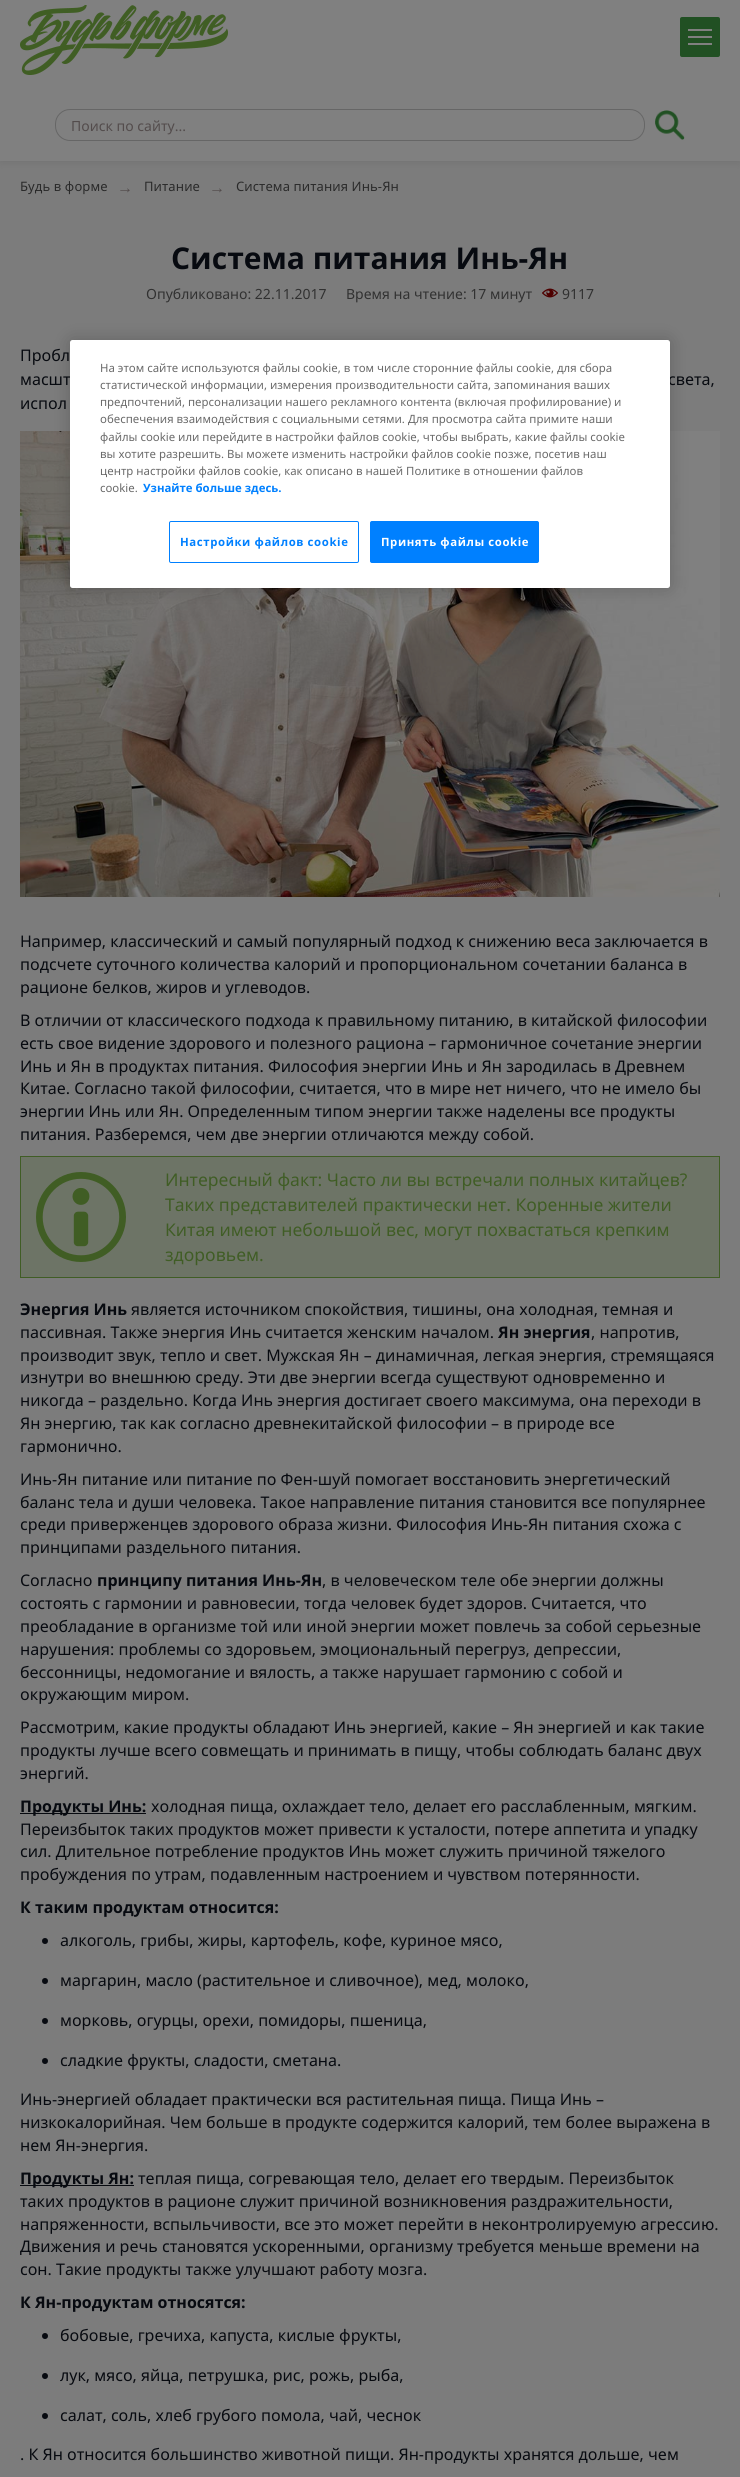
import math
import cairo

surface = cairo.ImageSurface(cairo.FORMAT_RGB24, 740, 2477)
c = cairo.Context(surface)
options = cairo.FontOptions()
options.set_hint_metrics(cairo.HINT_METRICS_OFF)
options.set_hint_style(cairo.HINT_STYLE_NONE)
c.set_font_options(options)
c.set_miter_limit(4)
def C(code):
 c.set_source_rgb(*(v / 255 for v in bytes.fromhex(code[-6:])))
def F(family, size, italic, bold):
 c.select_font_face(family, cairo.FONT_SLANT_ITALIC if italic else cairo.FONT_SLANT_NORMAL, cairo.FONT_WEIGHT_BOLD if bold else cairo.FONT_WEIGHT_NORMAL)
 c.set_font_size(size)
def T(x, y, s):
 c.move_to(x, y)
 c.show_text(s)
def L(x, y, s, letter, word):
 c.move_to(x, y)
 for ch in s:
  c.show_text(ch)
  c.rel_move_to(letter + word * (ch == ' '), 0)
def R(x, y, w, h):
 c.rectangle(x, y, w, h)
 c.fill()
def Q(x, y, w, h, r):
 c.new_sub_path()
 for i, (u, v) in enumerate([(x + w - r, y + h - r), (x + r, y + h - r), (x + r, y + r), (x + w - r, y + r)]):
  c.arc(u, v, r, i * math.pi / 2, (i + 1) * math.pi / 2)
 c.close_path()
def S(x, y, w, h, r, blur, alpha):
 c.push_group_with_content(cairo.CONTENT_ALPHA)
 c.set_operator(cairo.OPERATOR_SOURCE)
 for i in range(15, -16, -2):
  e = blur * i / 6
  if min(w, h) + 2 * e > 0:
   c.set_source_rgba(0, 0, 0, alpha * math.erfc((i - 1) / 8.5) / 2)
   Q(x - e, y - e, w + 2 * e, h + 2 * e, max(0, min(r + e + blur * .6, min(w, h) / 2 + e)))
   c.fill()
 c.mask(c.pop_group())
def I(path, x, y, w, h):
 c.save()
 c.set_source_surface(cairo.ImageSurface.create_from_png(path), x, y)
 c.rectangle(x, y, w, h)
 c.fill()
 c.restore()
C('7c7c7c')
c.paint()
C('000000')
S(0,0,740,161,0,5,.1)
C('808080')
R(0,0,740,161)
I('1.png',20,5,208,70)
C('215023')
Q(680,17,40,40,2)
c.fill()
C('808080')
R(688,29,24,2)
R(688,43,24,2)
R(688,36,24,2)
Q(55.5,109.5,589,31,14.5)
C('666666')
c.set_line_width(1)
c.stroke()
F('Noto Sans',14,0,0)
C('534c4c')
T(71,131,'Поиск по сайту...')
I('2.png',655,110,30,30)
F('Noto Sans',13,0,0)
C('2a2a2a')
L(20,191,'Будь в форме',.1,0)
F('Liberation Sans',16,0,0)
C('534c4c')
L(117,193,'→',.1,0)
F('Noto Sans',13,0,0)
C('2a2a2a')
L(144,191,'Питание',.1,0)
F('Liberation Sans',16,0,0)
C('534c4c')
L(209,193,'→',.1,0)
F('Noto Sans',13,0,0)
C('2a2a2a')
L(236,191,'Система питания Инь-Ян',.1,0)
F('Noto Sans',30,0,1)
C('070a10')
T(171,269,'Система питания Инь-Ян')
F('Noto Sans',14,0,0)
C('313131')
T(146,299,'Опубликовано: 22.11.2017')
T(346,299,'Время на чтение: 17 минут')
I('3.png',542,288,16,10)
T(562,299,'9117')
F('Noto Sans',16,0,0)
C('070a10')
T(20,361,'Пробл')
T(20,385,'масшт')
T(668,385,'света,')
T(20,409,'испол')
I('4.png',20,431,700,466)
T(20,947,'Например, классический и самый популярный подход к снижению веса заключается в')
T(20,970,'подсчете суточного количества калорий и пропорциональном сочетании баланса в')
T(20,993,'рационе белков, жиров и углеводов.')
T(20,1026,'В отличии от классического подхода к правильному питанию, в китайской философии')
T(20,1049,'есть свое видение здорового и полезного рациона – гармоничное сочетание энергии')
T(20,1072,'Инь и Ян в продуктах питания. Философия энергии Инь и Ян зародилась в Древнем')
T(20,1094,'Китае. Согласно такой философии, считается, что в мире нет ничего, что не имело бы')
T(20,1117,'энергии Инь или Ян. Определенным типом энергии также наделены все продукты')
T(20,1140,'питания. Разберемся, чем две энергии отличаются между собой.')
C('6d7466')
c.rectangle(20.5,1156.5,699,121)
c.fill_preserve()
C('405d25')
c.stroke()
I('5.png',36,1172,90,90)
F('Noto Sans',17.5,0,0)
T(165,1186,'Интересный факт: Часто ли вы встречали полных китайцев?')
T(165,1211,'Таких представителей практически нет. Коренные жители')
T(165,1236,'Китая имеют небольшой вес, могут похвастаться крепким')
T(165,1261,'здоровьем.')
F('Noto Sans',16,0,1)
C('070a10')
T(20,1315,'Энергия Инь')
F('Noto Sans',16,0,0)
T(131,1315,'является источником спокойствия, тишины, она холодная, темная и')
T(20,1338,'пассивная. Также энергия Инь считается женским началом.')
F('Noto Sans',16,0,1)
T(498,1338,'Ян энергия')
F('Noto Sans',16,0,0)
T(591,1338,', напротив,')
T(20,1361,'производит звук, тепло и свет. Мужская Ян – динамичная, легкая энергия, стремящаяся')
T(20,1383,'изнутри во внешнюю среду. Эти две энергии всегда существуют одновременно и')
T(20,1406,'никогда – раздельно. Когда Инь энергия достигает своего максимума, она переходи в')
T(20,1429,'Ян энергию, так как согласно древнекитайской философии – в природе все')
T(20,1452,'гармонично.')
T(20,1485,'Инь-Ян питание или питание по Фен-шуй помогает восстановить энергетический')
T(20,1508,'баланс тела и души человека. Такое направление питания становится все популярнее')
T(20,1530,'среди приверженцев здорового образа жизни. Философия Инь-Ян питания схожа с')
T(20,1553,'принципами раздельного питания.')
T(20,1586,'Согласно')
F('Noto Sans',16,0,1)
T(97,1586,'принципу питания Инь-Ян')
F('Noto Sans',16,0,0)
T(322,1586,', в человеческом теле обе энергии должны')
T(20,1609,'состоять с гармонии и равновесии, тогда человек будет здоров. Считается, что')
T(20,1632,'преобладание в организме той или иной энергии может повлечь за собой серьезные')
T(20,1655,'нарушения: проблемы со здоровьем, эмоциональный перегруз, депрессии,')
T(20,1678,'бессонницы, недомогание и вялость, а также нарушает гармонию с собой и')
T(20,1700,'окружающим миром.')
T(20,1733,'Рассмотрим, какие продукты обладают Инь энергией, какие – Ян энергией и как такие')
T(20,1756,'продукты лучше всего совмещать и принимать в пищу, чтобы соблюдать баланс двух')
T(20,1779,'энергий.')
R(20,1813,126,1)
F('Noto Sans',16,0,1)
T(20,1812,'Продукты Инь:')
F('Noto Sans',16,0,0)
T(151,1812,'холодная пища, охлаждает тело, делает его расслабленным, мягким.')
T(20,1835,'Переизбыток таких продуктов может привести к усталости, потере аппетита и упадку')
T(20,1857,'сил. Длительное потребление продуктов Инь может служить причиной тяжелого')
T(20,1880,'пробуждения по утрам, подавленным настроением и чувством потерянности.')
F('Noto Sans',16,0,1)
T(20,1913,'К таким продуктам относится:')
c.new_path()
c.arc(45,1941,3,0,2 * math.pi)
c.fill()
F('Noto Sans',16,0,0)
T(60,1946,'алкоголь, грибы, жиры, картофель, кофе, куриное мясо,')
c.new_path()
c.arc(45,1981,3,0,2 * math.pi)
c.fill()
T(60,1986,'маргарин, масло (растительное и сливочное), мед, молоко,')
c.new_path()
c.arc(45,2021,3,0,2 * math.pi)
c.fill()
T(60,2026,'морковь, огурцы, орехи, помидоры, пшеница,')
c.new_path()
c.arc(45,2061,3,0,2 * math.pi)
c.fill()
T(60,2066,'сладкие фрукты, сладости, сметана.')
T(20,2105,'Инь-энергией обладает практически вся растительная пища. Пища Инь –')
T(20,2128,'низкокалорийная. Чем больше в продукте содержится калорий, тем более выражена в')
T(20,2151,'нем Ян-энергия.')
R(20,2185,114,1)
F('Noto Sans',16,0,1)
T(20,2184,'Продукты Ян:')
F('Noto Sans',16,0,0)
T(138,2184,'теплая пища, согревающая тело, делает его твердым. Переизбыток')
T(20,2207,'таких продуктов в рационе служит причиной возникновения раздражительности,')
T(20,2230,'напряженности, вспыльчивости, все это может перейти в неконтролируемую агрессию.')
T(20,2252,'Движения и речь становятся ускоренными, организму требуется меньше времени на')
T(20,2275,'сон. Такие продукты также улучшают работу мозга.')
F('Noto Sans',16,0,1)
T(20,2308,'К Ян-продуктам относятся:')
c.new_path()
c.arc(45,2336,3,0,2 * math.pi)
c.fill()
F('Noto Sans',16,0,0)
T(60,2341,'бобовые, гречиха, капуста, кислые фрукты,')
c.new_path()
c.arc(45,2376,3,0,2 * math.pi)
c.fill()
T(60,2381,'лук, мясо, яйца, петрушка, рис, рожь, рыба,')
c.new_path()
c.arc(45,2416,3,0,2 * math.pi)
c.fill()
T(60,2421,'салат, соль, хлеб грубого помола, чай, чеснок')
T(20,2460,'. К Ян относится большинство животной пищи. Ян-продукты хранятся дольше, чем')
C('000000')
S(70,340,600,248,2.5,9,.2)
C('ffffff')
Q(70,340,600,248,2.5)
c.fill()
F('Noto Sans',11.4,0,0)
C('696969')
T(100,372,'На этом сайте используются файлы cookie, в том числе сторонние файлы cookie, для сбора')
T(100,389,'статистической информации, измерения производительности сайта, запоминания ваших')
T(100,406,'предпочтений, персонализации нашего рекламного контента (включая профилирование) и')
T(100,423,'обеспечения взаимодействия с социальными сетями. Для просмотра сайта примите наши')
T(100,441,'файлы cookie или перейдите в настройки файлов cookie, чтобы выбрать, какие файлы cookie')
T(100,458,'вы хотите разрешить. Вы можете изменить настройки файлов cookie позже, посетив наш')
T(100,475,'центр настройки файлов cookie, как описано в нашей Политике в отношении файлов')
T(100,492,'cookie.')
F('Noto Sans',11.4,0,1)
C('0080ff')
T(143,492,'Узнайте больше здесь.')
Q(169.5,521.5,189,41,1.5)
c.stroke()
L(180,546,'Настройки файлов cookie',.6,0)
Q(370.5,521.5,168,41,1.5)
c.fill_preserve()
c.stroke()
C('ffffff')
L(381,546,'Принять файлы cookie',.6,0)
surface.write_to_png('o.png')
